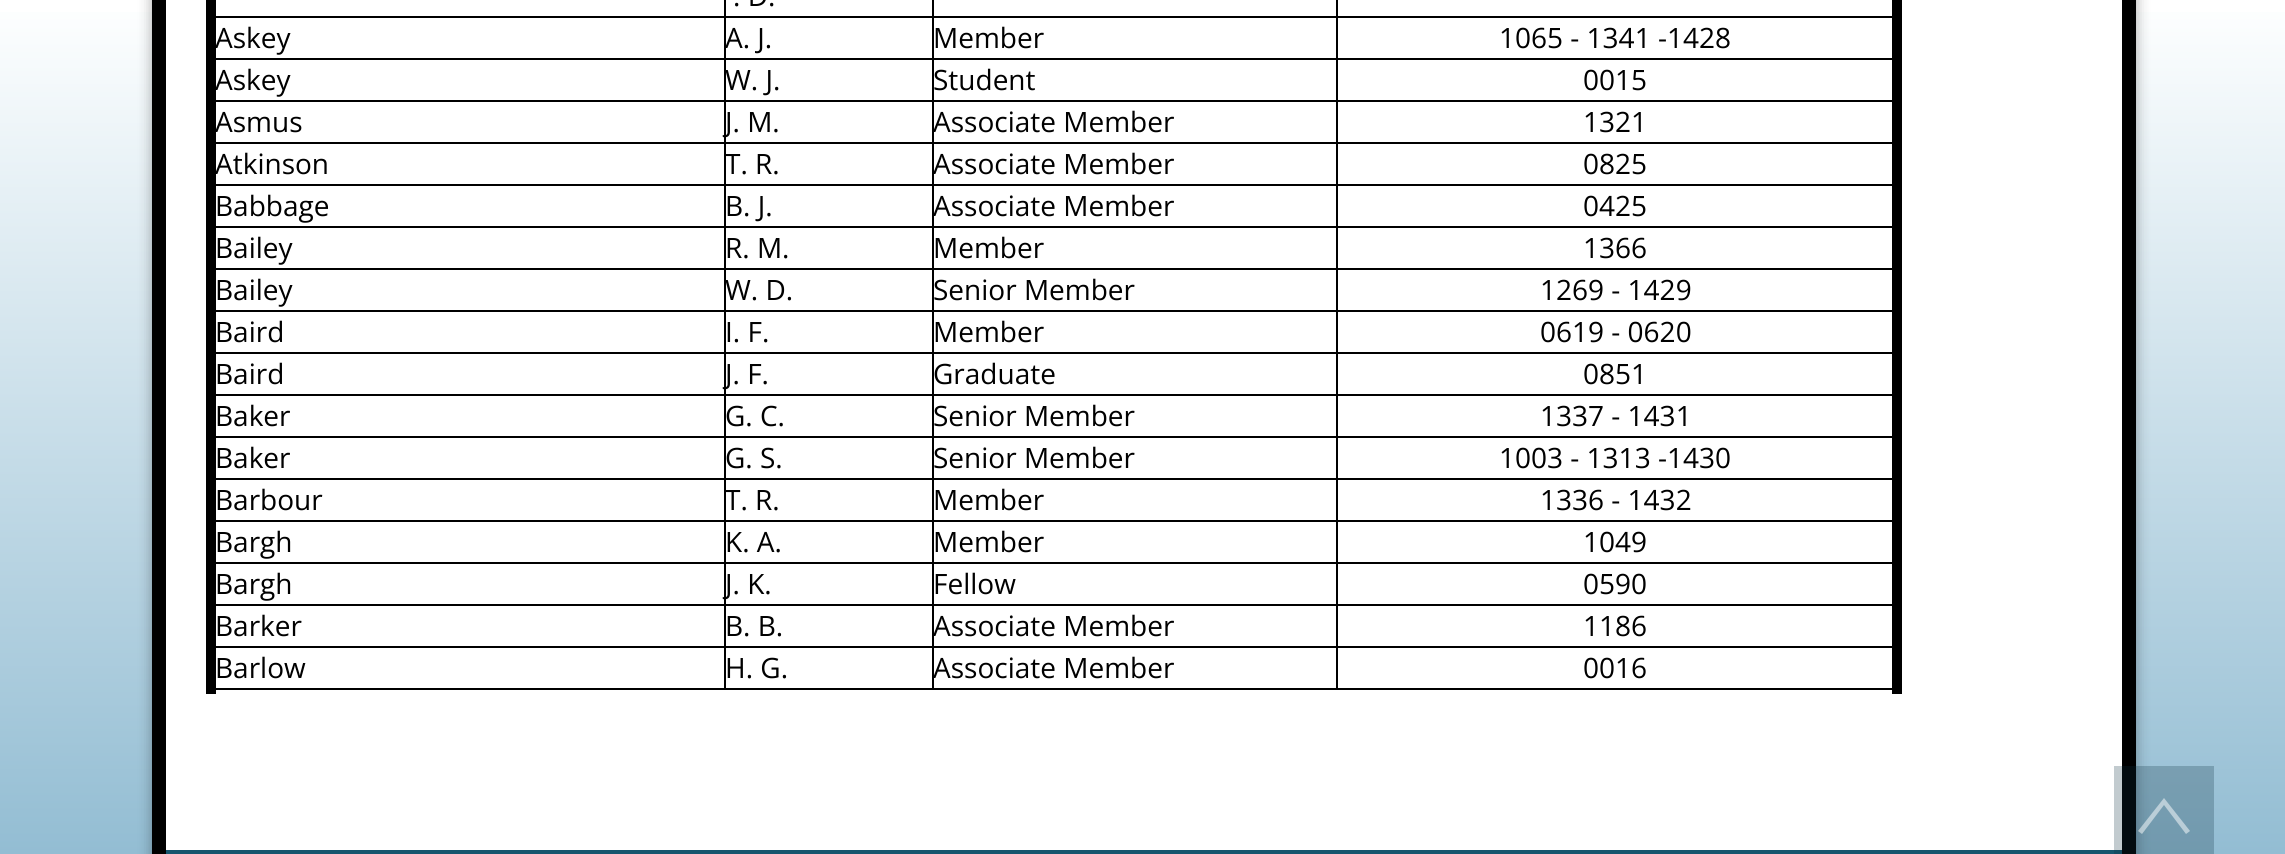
import math
import cairo

surface = cairo.ImageSurface(cairo.FORMAT_RGB24, 2285, 854)
c = cairo.Context(surface)
options = cairo.FontOptions()
options.set_hint_metrics(cairo.HINT_METRICS_OFF)
options.set_hint_style(cairo.HINT_STYLE_NONE)
c.set_font_options(options)
c.set_miter_limit(4)
def C(code):
 c.set_source_rgb(*(v / 255 for v in bytes.fromhex(code[-6:])))
def F(family, size, italic, bold):
 c.select_font_face(family, cairo.FONT_SLANT_ITALIC if italic else cairo.FONT_SLANT_NORMAL, cairo.FONT_WEIGHT_BOLD if bold else cairo.FONT_WEIGHT_NORMAL)
 c.set_font_size(size)
def T(x, y, s):
 c.move_to(x, y)
 c.show_text(s)
def R(x, y, w, h):
 c.rectangle(x, y, w, h)
 c.fill()
def Q(x, y, w, h, r):
 c.new_sub_path()
 for i, (u, v) in enumerate([(x + w - r, y + h - r), (x + r, y + h - r), (x + r, y + r), (x + w - r, y + r)]):
  c.arc(u, v, r, i * math.pi / 2, (i + 1) * math.pi / 2)
 c.close_path()
def S(x, y, w, h, r, blur, alpha):
 c.push_group_with_content(cairo.CONTENT_ALPHA)
 c.set_operator(cairo.OPERATOR_SOURCE)
 for i in range(15, -16, -2):
  e = blur * i / 6
  if min(w, h) + 2 * e > 0:
   c.set_source_rgba(0, 0, 0, alpha * math.erfc((i - 1) / 8.5) / 2)
   Q(x - e, y - e, w + 2 * e, h + 2 * e, max(0, min(r + e + blur * .6, min(w, h) / 2 + e)))
   c.fill()
 c.mask(c.pop_group())
C('ffffff')
c.paint()
gradient = cairo.LinearGradient(1143,854,1143,0)
gradient.add_color_stop_rgba(0,0.576,0.741,0.827,1)
gradient.add_color_stop_rgba(1,0.996,1,1,1)
c.set_source(gradient)
R(0,12,2285,842)
C('000000')
S(152,-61,1984,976,40,7,.33)
C('ffffff')
R(166,0,1956,850)
c.rectangle(159,-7,1970,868)
C('000000')
c.set_line_width(14)
c.stroke()
R(1336,16,562,2)
R(1336,58,562,2)
R(1336,100,562,2)
R(1336,142,562,2)
R(1336,184,562,2)
R(1336,226,562,2)
R(1336,268,562,2)
R(1336,310,562,2)
R(1336,352,562,2)
R(1336,394,562,2)
R(1336,436,562,2)
R(1336,478,562,2)
R(1336,520,562,2)
R(1336,562,562,2)
R(1336,604,562,2)
R(1336,646,562,2)
R(1336,688,562,2)
R(1336,646,2,44)
R(932,646,406,2)
R(1336,604,2,44)
R(932,604,406,2)
R(1336,562,2,44)
R(932,562,406,2)
R(1336,520,2,44)
R(932,520,406,2)
R(1336,478,2,44)
R(932,478,406,2)
R(1336,436,2,44)
R(932,436,406,2)
R(1336,394,2,44)
R(932,394,406,2)
R(1336,352,2,44)
R(932,352,406,2)
R(1336,310,2,44)
R(932,310,406,2)
R(1336,268,2,44)
R(932,268,406,2)
R(1336,226,2,44)
R(932,226,406,2)
R(1336,184,2,44)
R(932,184,406,2)
R(1336,142,2,44)
R(932,142,406,2)
R(1336,100,2,44)
R(932,100,406,2)
R(1336,58,2,44)
R(932,58,406,2)
R(1336,16,2,44)
R(932,16,406,2)
R(932,688,406,2)
R(932,646,2,44)
R(724,646,210,2)
R(932,604,2,44)
R(724,604,210,2)
R(932,562,2,44)
R(724,562,210,2)
R(932,520,2,44)
R(724,520,210,2)
R(932,478,2,44)
R(724,478,210,2)
R(932,436,2,44)
R(724,436,210,2)
R(932,394,2,44)
R(724,394,210,2)
R(932,352,2,44)
R(724,352,210,2)
R(932,310,2,44)
R(724,310,210,2)
R(932,268,2,44)
R(724,268,210,2)
R(932,226,2,44)
R(724,226,210,2)
R(932,184,2,44)
R(724,184,210,2)
R(932,142,2,44)
R(724,142,210,2)
R(932,100,2,44)
R(724,100,210,2)
R(932,58,2,44)
R(724,58,210,2)
R(932,16,2,44)
R(724,16,210,2)
R(724,688,210,2)
R(724,646,2,44)
R(210,646,516,2)
R(724,604,2,44)
R(210,604,516,2)
R(724,562,2,44)
R(210,562,516,2)
R(724,520,2,44)
R(210,520,516,2)
R(724,478,2,44)
R(210,478,516,2)
R(724,436,2,44)
R(210,436,516,2)
R(724,394,2,44)
R(210,394,516,2)
R(724,352,2,44)
R(210,352,516,2)
R(724,310,2,44)
R(210,310,516,2)
R(724,268,2,44)
R(210,268,516,2)
R(724,226,2,44)
R(210,226,516,2)
R(724,184,2,44)
R(210,184,516,2)
R(724,142,2,44)
R(210,142,516,2)
R(724,100,2,44)
R(210,100,516,2)
R(724,58,2,44)
R(210,58,516,2)
R(724,16,2,44)
R(210,16,516,2)
R(724,0,2,18)
F('Open Sans',28,0,0)
T(733,6,'. D.')
R(932,0,2,18)
R(1336,0,2,18)
R(210,688,516,2)
R(206,0,10,694)
T(215,48,'Askey')
T(725,48,'A. J.')
T(933,48,'Member')
T(1499,48,'1065 - 1341 -1428')
T(215,90,'Askey')
T(725,90,'W. J.')
T(933,90,'Student')
T(1583,90,'0015')
T(215,132,'Asmus')
T(725,132,'J. M.')
T(933,132,'Associate Member')
T(1583,132,'1321')
T(215,174,'Atkinson')
T(725,174,'T. R.')
T(933,174,'Associate Member')
T(1583,174,'0825')
T(215,216,'Babbage')
T(725,216,'B. J.')
T(933,216,'Associate Member')
T(1583,216,'0425')
T(215,258,'Bailey')
T(725,258,'R. M.')
T(933,258,'Member')
T(1583,258,'1366')
T(215,300,'Bailey')
T(725,300,'W. D.')
T(933,300,'Senior Member')
T(1540,300,'1269 - 1429')
T(215,342,'Baird')
T(725,342,'I. F.')
T(933,342,'Member')
T(1540,342,'0619 - 0620')
T(215,384,'Baird')
T(725,384,'J. F.')
T(933,384,'Graduate')
T(1583,384,'0851')
T(215,426,'Baker')
T(725,426,'G. C.')
T(933,426,'Senior Member')
T(1540,426,'1337 - 1431')
T(215,468,'Baker')
T(725,468,'G. S.')
T(933,468,'Senior Member')
T(1499,468,'1003 - 1313 -1430')
T(215,510,'Barbour')
T(725,510,'T. R.')
T(933,510,'Member')
T(1540,510,'1336 - 1432')
T(215,552,'Bargh')
T(725,552,'K. A.')
T(933,552,'Member')
T(1583,552,'1049')
T(215,594,'Bargh')
T(725,594,'J. K.')
T(933,594,'Fellow')
T(1583,594,'0590')
T(215,636,'Barker')
T(725,636,'B. B.')
T(933,636,'Associate Member')
T(1583,636,'1186')
T(215,678,'Barlow')
T(725,678,'H. G.')
T(933,678,'Associate Member')
R(1892,0,10,694)
T(1583,678,'0016')
gradient = cairo.LinearGradient(1144,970,1144,850)
gradient.add_color_stop_rgba(0,0.133,0.545,0.69,1)
gradient.add_color_stop_rgba(1,0.086,0.333,0.427,1)
c.set_source(gradient)
R(166,850,1956,4)
c.set_source_rgba(0.047,0.196,0.251,0.25)
R(2114,766,100,88)
c.set_source_rgba(1,1,1,0.5)
c.new_path()
c.move_to(2164,798)
c.line_to(2190,831)
c.line_to(2186,834)
c.line_to(2164,805)
c.line_to(2142,834)
c.line_to(2138,831)
c.close_path()
c.fill()
surface.write_to_png('o.png')
